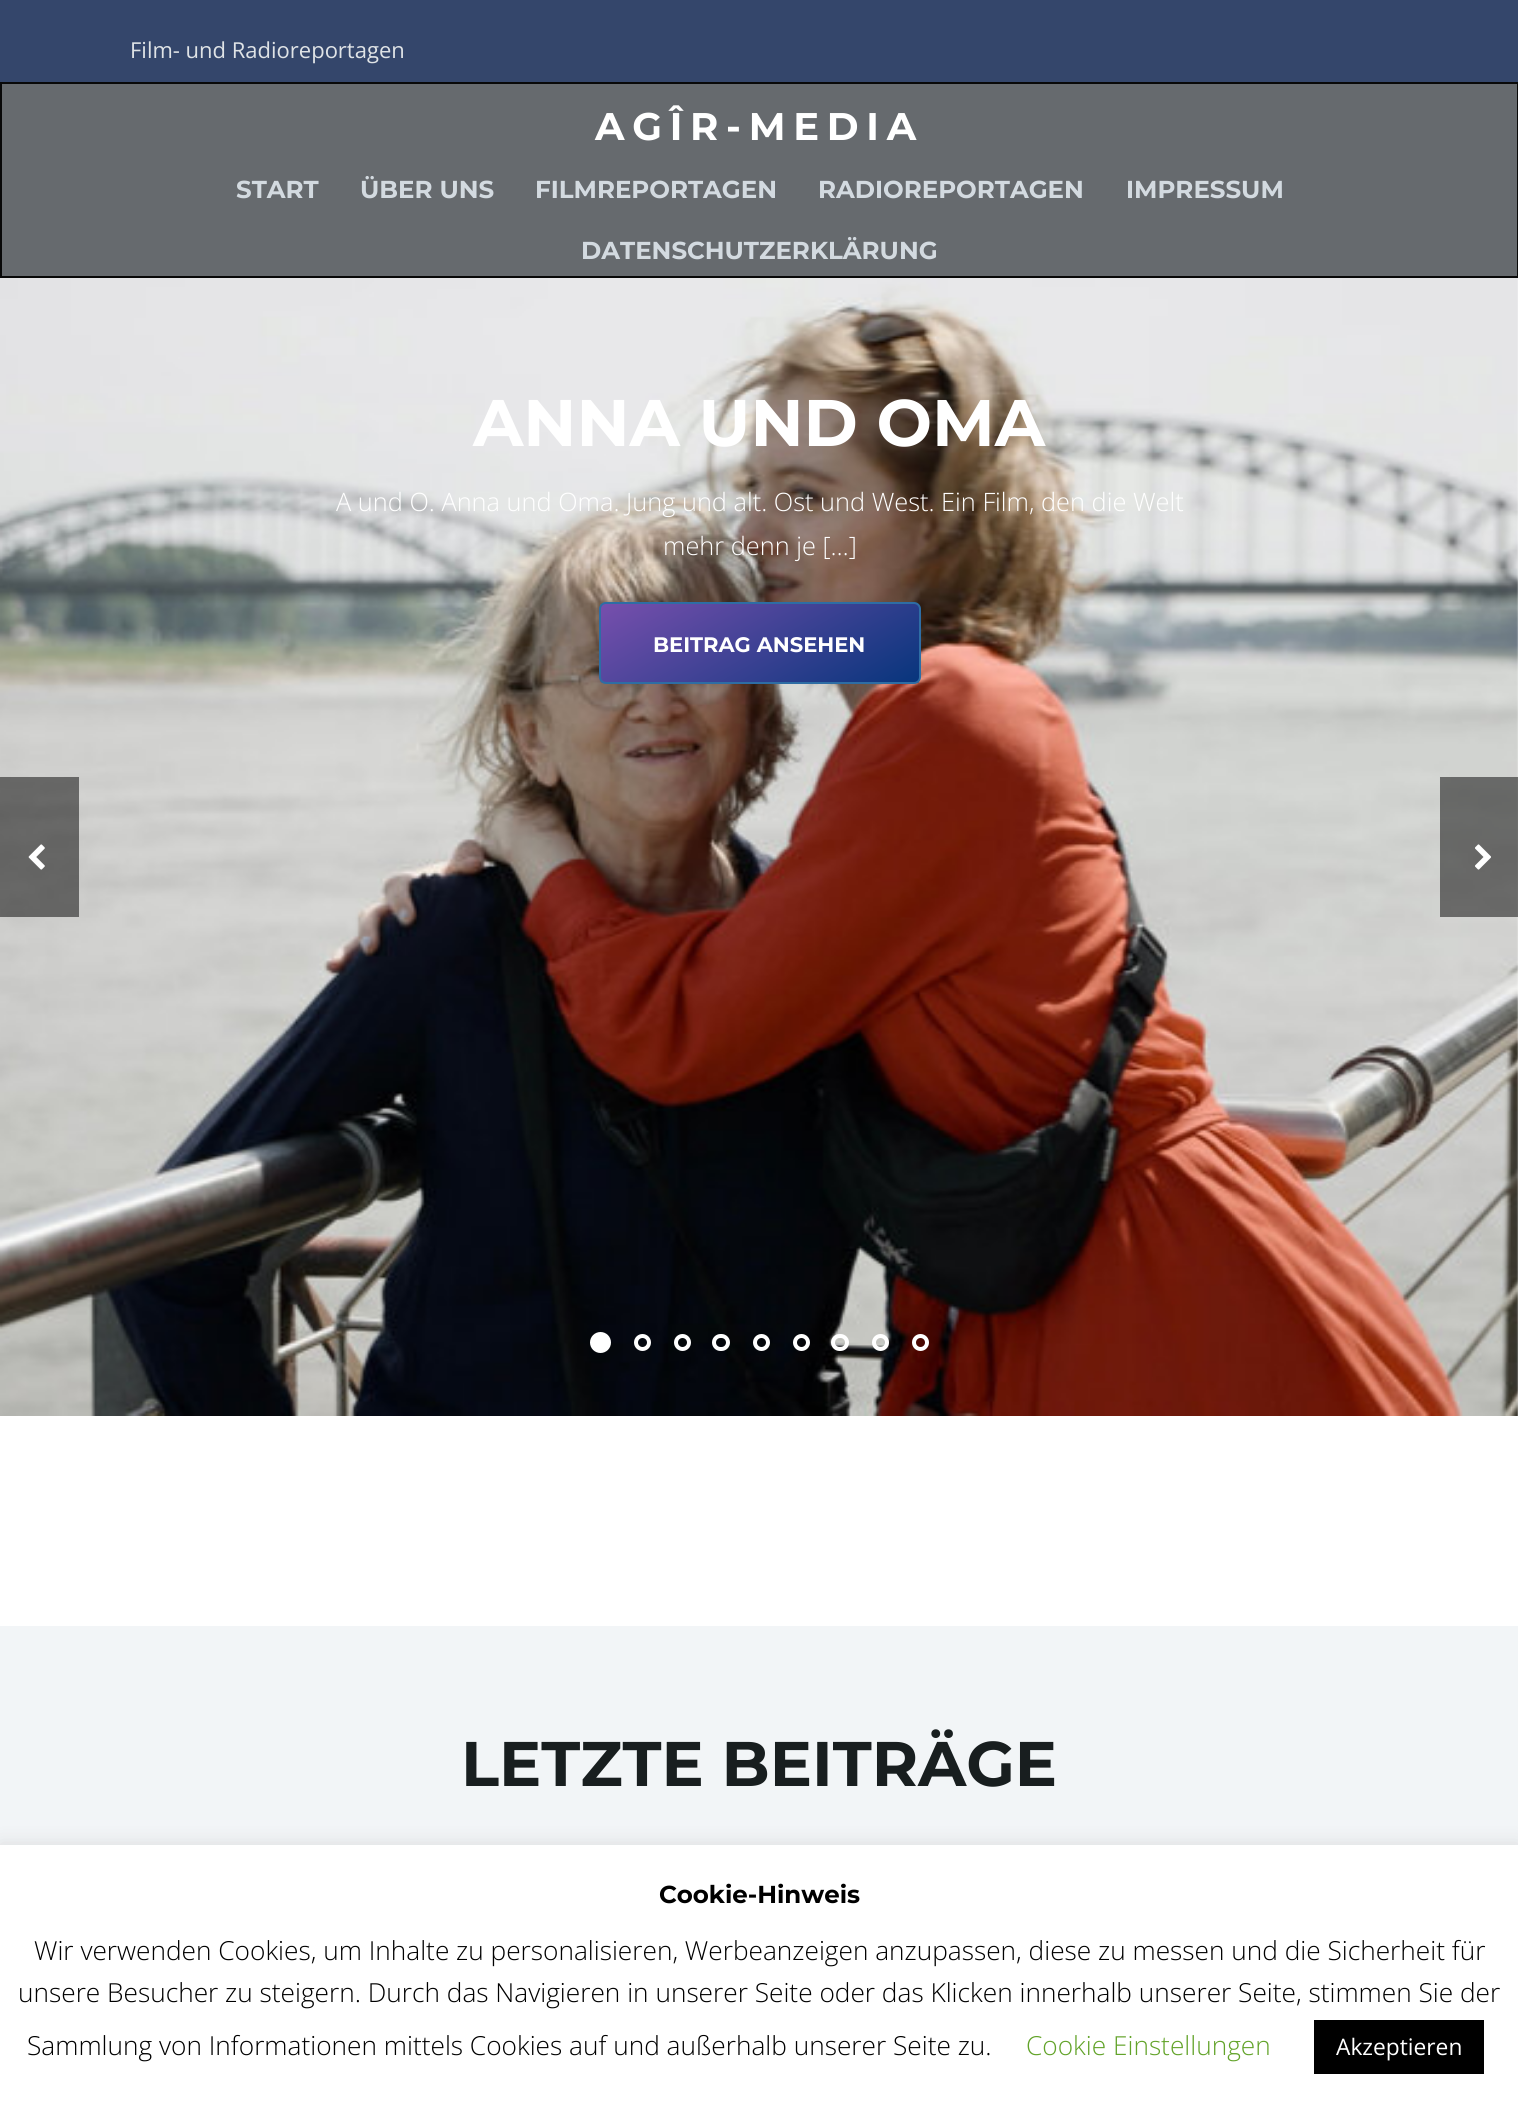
import math
import cairo

surface = cairo.ImageSurface(cairo.FORMAT_RGB24, 1518, 2103)
c = cairo.Context(surface)
options = cairo.FontOptions()
options.set_hint_metrics(cairo.HINT_METRICS_OFF)
options.set_hint_style(cairo.HINT_STYLE_NONE)
c.set_font_options(options)
c.set_miter_limit(4)
def C(code):
 c.set_source_rgb(*(v / 255 for v in bytes.fromhex(code[-6:])))
def F(family, size, italic, bold):
 c.select_font_face(family, cairo.FONT_SLANT_ITALIC if italic else cairo.FONT_SLANT_NORMAL, cairo.FONT_WEIGHT_BOLD if bold else cairo.FONT_WEIGHT_NORMAL)
 c.set_font_size(size)
def T(x, y, s):
 c.move_to(x, y)
 c.show_text(s)
def L(x, y, s, letter, word):
 c.move_to(x, y)
 for ch in s:
  c.show_text(ch)
  c.rel_move_to(letter + word * (ch == ' '), 0)
def R(x, y, w, h):
 c.rectangle(x, y, w, h)
 c.fill()
def Q(x, y, w, h, r):
 c.new_sub_path()
 for i, (u, v) in enumerate([(x + w - r, y + h - r), (x + r, y + h - r), (x + r, y + r), (x + w - r, y + r)]):
  c.arc(u, v, r, i * math.pi / 2, (i + 1) * math.pi / 2)
 c.close_path()
def S(x, y, w, h, r, blur, alpha):
 c.push_group_with_content(cairo.CONTENT_ALPHA)
 c.set_operator(cairo.OPERATOR_SOURCE)
 for i in range(15, -16, -2):
  e = blur * i / 6
  if min(w, h) + 2 * e > 0:
   c.set_source_rgba(0, 0, 0, alpha * math.erfc((i - 1) / 8.5) / 2)
   Q(x - e, y - e, w + 2 * e, h + 2 * e, max(0, min(r + e + blur * .6, min(w, h) / 2 + e)))
   c.fill()
 c.mask(c.pop_group())
def I(path, x, y, w, h):
 c.save()
 c.set_source_surface(cairo.ImageSurface.create_from_png(path), x, y)
 c.rectangle(x, y, w, h)
 c.fill()
 c.restore()
C('ffffff')
c.paint()
C('34466b')
R(0,0,1518,82)
F('Open Sans',22,0,0)
C('dfe3e6')
T(130,58,'Film- und Radioreportagen')
C('666a6e')
c.rectangle(1,83,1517,194)
c.fill_preserve()
C('080808')
c.stroke()
F('Montserrat Thin',38.5,0,0)
C('ffffff')
L(595,140,'AGÎR-MEDIA',7.75,0)
F('Montserrat Thin',24.5,0,0)
C('d3dae0')
T(236,198,'START')
T(360,198,'ÜBER UNS')
T(535,198,'FILMREPORTAGEN')
T(818,198,'RADIOREPORTAGEN')
T(1126,198,'IMPRESSUM')
T(581,259,'DATENSCHUTZERKLÄRUNG')
I('1.png',0,278,1518,1138)
F('Montserrat Thin',65.75,0,0)
C('ffffff')
T(473,446,'ANNA UND OMA')
F('Open Sans Light',25.35,0,0)
T(336,511,'A und O. Anna und Oma. Jung und alt. Ost und West. Ein Film, den die Welt')
T(663,555,'mehr denn je […]')
c.save()
Q(599,602,322,82,7)
c.clip()
gradient = cairo.LinearGradient(703,545,816,742)
gradient.add_color_stop_rgba(0,0.467,0.31,0.678,1)
gradient.add_color_stop_rgba(1,0.027,0.208,0.486,1)
c.set_source(gradient)
R(600,604,319,79)
c.restore()
Q(600,603,320,80,6)
C('2e6da4')
c.stroke()
F('Montserrat Thin',21,0,0)
C('ffffff')
T(653,652,'BEITRAG ANSEHEN')
c.set_source_rgba(0,0,0,0.5)
R(0,777,79,140)
I('2.png',28,844,17,26)
R(1440,777,78,140)
I('3.png',1475,844,16,26)
C('ffffff')
c.arc(600.5,1342.5,8.5,0,2 * math.pi)
c.fill_preserve()
c.set_line_width(4)
c.stroke()
c.arc(642.5,1342.5,6.5,0,2 * math.pi)
c.stroke()
c.arc(682.5,1342.5,6.5,0,2 * math.pi)
c.stroke()
Q(714,1336,14,13,6.5)
c.stroke()
c.arc(761.5,1342.5,6.5,0,2 * math.pi)
c.stroke()
c.arc(801.5,1342.5,6.5,0,2 * math.pi)
c.stroke()
Q(833,1336,14,13,6.5)
c.stroke()
c.arc(880.5,1342.5,6.5,0,2 * math.pi)
c.stroke()
c.arc(920.5,1342.5,6.5,0,2 * math.pi)
c.stroke()
C('f2f5f7')
R(0,1626,1518,219)
F('Montserrat Thin',63,0,0)
C('181e1f')
T(461,1786,'LETZTE BEITRÄGE')
C('acabab')
S(0,1843,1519,259,0,9,.3)
C('ffffff')
R(0,1845,1518,258)
F('Montserrat Thin',24.5,0,0)
C('000000')
T(659,1903,'Cookie-Hinweis')
F('Open Sans Light',26.25,0,0)
T(34,1960,'Wir verwenden Cookies, um Inhalte zu personalisieren, Werbeanzeigen anzupassen, diese zu messen und die Sicherheit für')
T(18,2002,'unsere Besucher zu steigern. Durch das Navigieren in unserer Seite oder das Klicken innerhalb unserer Seite, stimmen Sie der')
T(27,2055,'Sammlung von Informationen mittels Cookies auf und außerhalb unserer Seite zu.')
C('62a329')
T(1026,2055,'Cookie Einstellungen')
C('000000')
R(1314,2020,170,54)
F('Open Sans',22.75,0,0)
C('ffffff')
T(1336,2055,'Akzeptieren')
surface.write_to_png('o.png')
